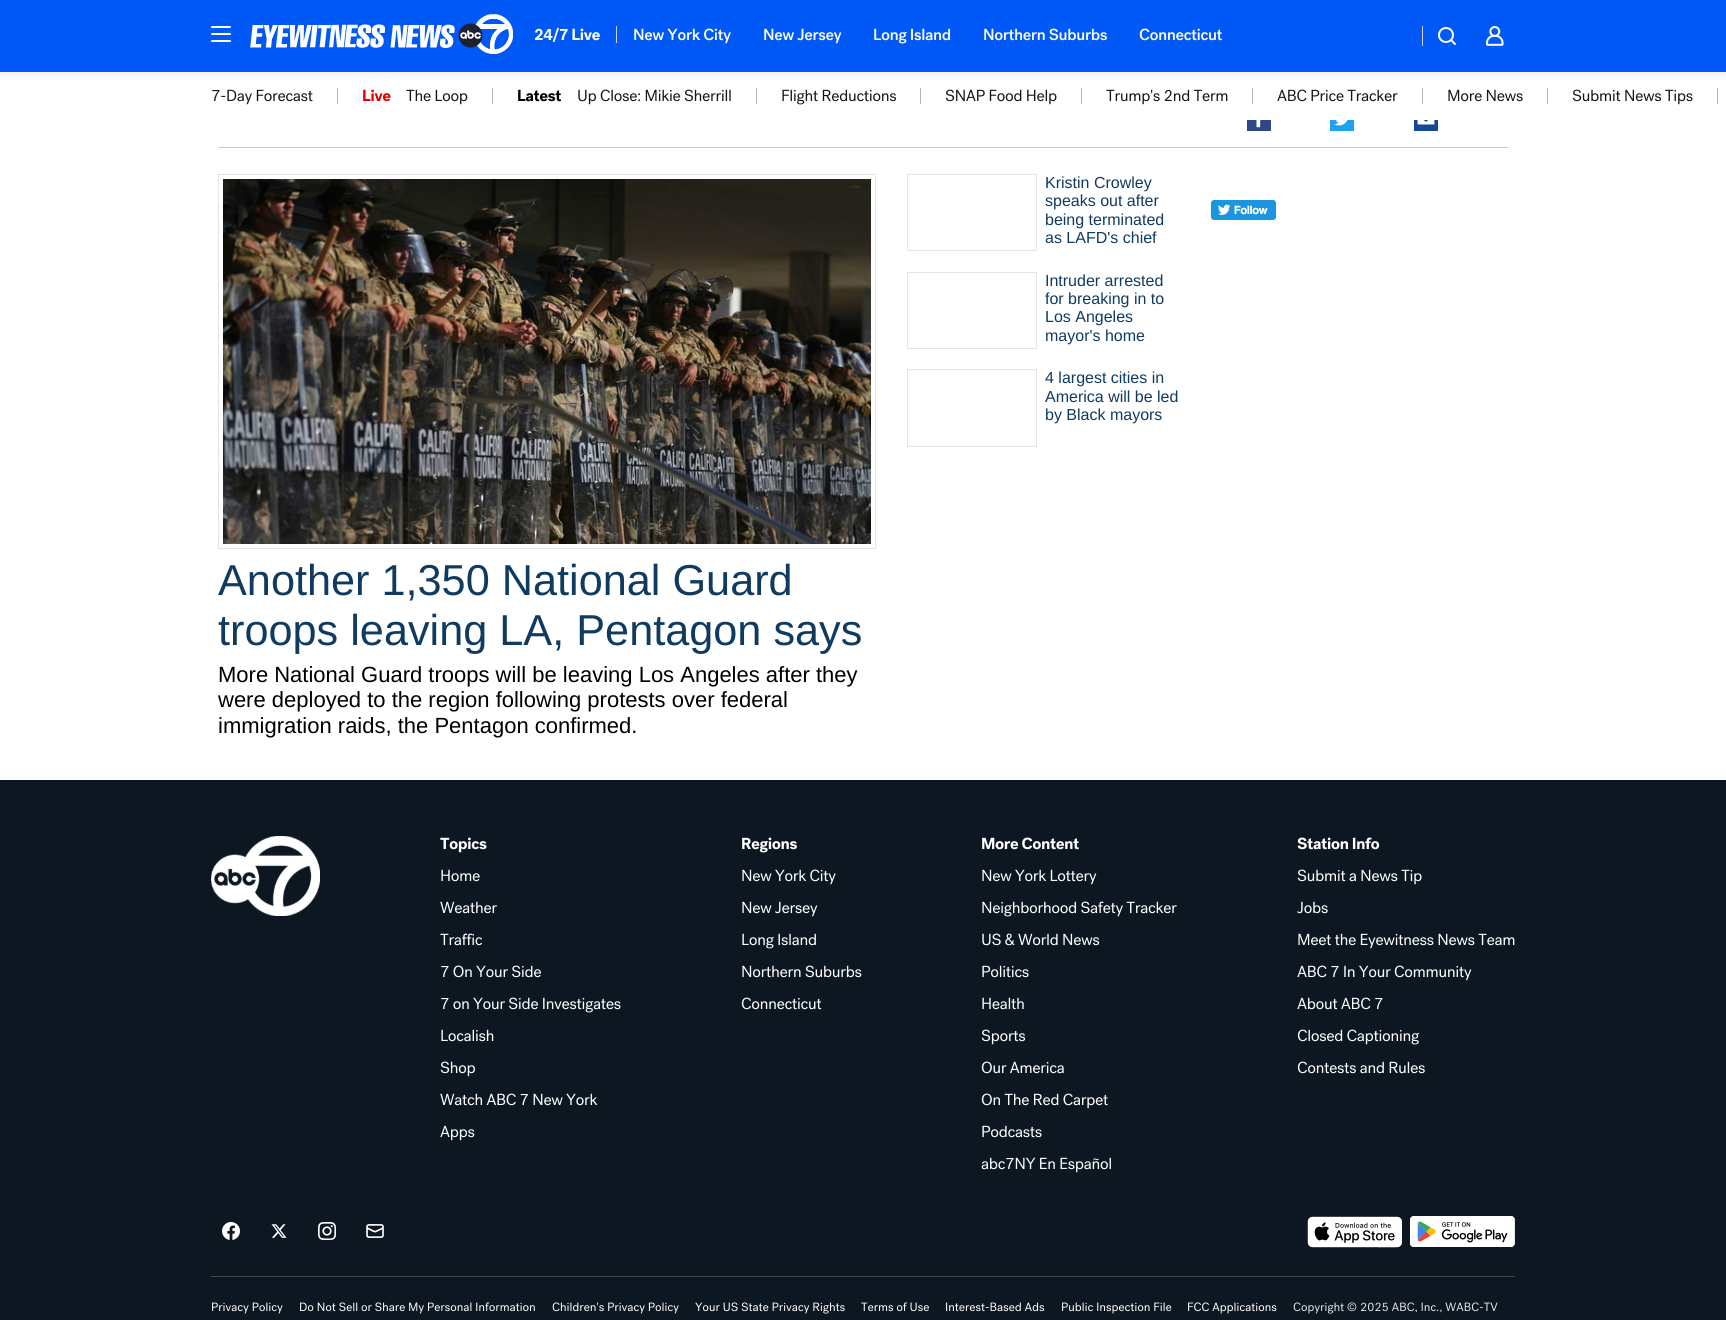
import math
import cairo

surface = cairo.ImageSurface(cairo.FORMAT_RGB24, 1726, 1320)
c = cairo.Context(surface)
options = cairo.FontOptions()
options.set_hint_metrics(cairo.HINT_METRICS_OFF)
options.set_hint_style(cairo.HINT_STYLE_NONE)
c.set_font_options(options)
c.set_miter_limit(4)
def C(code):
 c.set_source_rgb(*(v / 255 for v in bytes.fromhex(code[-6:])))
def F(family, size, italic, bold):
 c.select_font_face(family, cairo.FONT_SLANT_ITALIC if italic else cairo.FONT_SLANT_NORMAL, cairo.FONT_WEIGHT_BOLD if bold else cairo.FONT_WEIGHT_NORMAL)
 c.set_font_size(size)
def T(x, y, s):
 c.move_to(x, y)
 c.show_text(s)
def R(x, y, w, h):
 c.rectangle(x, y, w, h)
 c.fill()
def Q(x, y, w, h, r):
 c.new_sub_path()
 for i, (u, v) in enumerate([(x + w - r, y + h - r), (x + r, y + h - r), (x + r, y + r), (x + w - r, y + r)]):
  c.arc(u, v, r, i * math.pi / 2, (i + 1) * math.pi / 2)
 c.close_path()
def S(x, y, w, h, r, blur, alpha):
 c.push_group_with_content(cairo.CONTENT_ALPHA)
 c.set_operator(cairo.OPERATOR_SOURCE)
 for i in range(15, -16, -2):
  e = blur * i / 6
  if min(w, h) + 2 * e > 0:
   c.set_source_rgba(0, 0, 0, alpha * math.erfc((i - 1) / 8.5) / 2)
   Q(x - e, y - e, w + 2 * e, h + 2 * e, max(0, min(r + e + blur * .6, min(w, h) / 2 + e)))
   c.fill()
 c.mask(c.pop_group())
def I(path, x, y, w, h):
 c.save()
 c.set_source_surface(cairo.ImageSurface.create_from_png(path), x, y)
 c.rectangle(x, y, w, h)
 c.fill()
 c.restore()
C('ffffff')
c.paint()
I('10.png',212,89,101,16)
C('b0b5be')
R(337,88,1,16)
I('11.png',363,89,28,13)
I('12.png',406,89,62,16)
R(492,88,1,16)
I('13.png',518,89,44,13)
I('14.png',578,89,153,16)
R(756,88,1,16)
I('15.png',782,89,114,16)
R(920,88,1,16)
I('16.png',945,89,112,16)
R(1081,88,1,16)
I('17.png',1106,89,122,16)
R(1252,88,1,16)
I('18.png',1277,89,121,13)
R(1422,88,1,16)
I('19.png',1448,89,75,13)
R(1547,88,1,16)
I('20.png',1572,89,121,16)
R(1717,88,1,16)
C('000000')
S(0,2,1726,72,0,5,.08)
C('0058f6')
R(0,0,1726,72)
C('ffffff')
Q(211,33,20,2,1)
c.fill()
Q(211,26,20,2,1)
c.fill()
Q(211,40,20,2,1)
c.fill()
I('1.png',250,14,263,40)
I('2.png',534,27,66,15)
C('cecfcf')
R(616,26,1,17)
I('3.png',634,28,97,16)
I('4.png',764,28,78,16)
I('5.png',874,28,77,16)
I('6.png',984,28,123,13)
I('7.png',1139,28,83,13)
R(1422,26,1,20)
I('8.png',1438,27,18,18)
I('9.png',1486,26,18,20)
C('cccccc')
R(218,147,1290,1)
C('2d4885')
R(1247,120,24,11)
I('21.png',1256,120,5,8)
C('1da1f2')
R(1330,120,24,11)
I('22.png',1334,120,14,6)
C('144795')
R(1414,120,24,11)
I('23.png',1417,120,18,5)
c.rectangle(907.5,174.5,129,76)
C('e4e4e4')
c.set_line_width(1)
c.stroke()
F('Liberation Sans',16,0,0)
C('103b61')
T(1045,188,'Kristin Crowley')
T(1045,206,'speaks out after')
T(1045,225,'being terminated')
T(1045,243,'as LAFD\'s chief')
c.rectangle(907.5,272.5,129,76)
C('e4e4e4')
c.stroke()
C('103b61')
T(1045,286,'Intruder arrested')
T(1045,304,'for breaking in to')
T(1045,322,'Los Angeles')
T(1045,341,'mayor\'s home')
c.rectangle(907.5,369.5,129,77)
C('e4e4e4')
c.stroke()
C('103b61')
T(1045,383,'4 largest cities in')
T(1045,402,'America will be led')
T(1045,420,'by Black mayors')
c.rectangle(218.5,174.5,657,374)
C('e4e4e4')
c.stroke()
I('24.png',223,179,648,365)
F('Liberation Sans',43.25,0,0)
C('103b61')
T(218,595,'Another 1,350 National Guard')
T(218,645,'troops leaving LA, Pentagon says')
F('Liberation Sans',22,0,0)
C('000000')
T(218,682,'More National Guard troops will be leaving Los Angeles after they')
T(218,707,'were deployed to the region following protests over federal')
T(218,733,'immigration raids, the Pentagon confirmed.')
I('25.png',1211,200,65,20)
C('0d1721')
R(0,780,1726,540)
I('26.png',211,836,109,80)
I('27.png',440,837,47,16)
I('28.png',441,869,39,13)
I('29.png',440,901,57,13)
I('30.png',440,933,43,13)
I('31.png',441,965,100,13)
I('32.png',441,997,180,16)
I('33.png',441,1029,53,13)
I('34.png',440,1061,35,16)
I('35.png',440,1093,158,13)
I('36.png',440,1125,35,16)
I('37.png',742,837,55,16)
I('38.png',742,869,94,16)
I('39.png',742,901,76,16)
I('40.png',742,933,74,16)
I('41.png',742,965,120,13)
I('42.png',741,997,81,13)
I('43.png',982,837,97,13)
I('44.png',982,869,115,16)
I('45.png',982,901,195,16)
I('46.png',982,933,118,13)
I('47.png',982,965,47,13)
I('48.png',982,997,42,13)
I('49.png',981,1029,45,16)
I('50.png',981,1061,83,13)
I('51.png',981,1093,127,16)
I('52.png',982,1125,60,13)
I('53.png',981,1157,130,16)
I('54.png',1297,837,83,13)
I('55.png',1297,869,125,16)
I('56.png',1297,901,31,13)
I('57.png',1298,933,217,16)
I('58.png',1297,965,175,16)
I('59.png',1297,997,86,13)
I('60.png',1297,1029,123,16)
I('61.png',1297,1061,128,13)
I('62.png',222,1222,18,18)
I('63.png',271,1224,16,14)
I('64.png',318,1222,18,18)
I('65.png',366,1224,18,14)
I('66.png',1307,1216,95,32)
I('67.png',1410,1216,105,31)
C('3d454d')
R(211,1276,1304,1)
I('68.png',212,1302,71,12)
I('69.png',300,1302,235,12)
I('70.png',552,1302,127,12)
I('71.png',695,1302,150,12)
I('72.png',861,1302,68,10)
I('73.png',946,1302,99,10)
I('74.png',1062,1302,110,12)
I('75.png',1188,1302,89,12)
I('76.png',1293,1302,64,12)
I('77.png',1361,1302,137,11)
surface.write_to_png('o.png')
